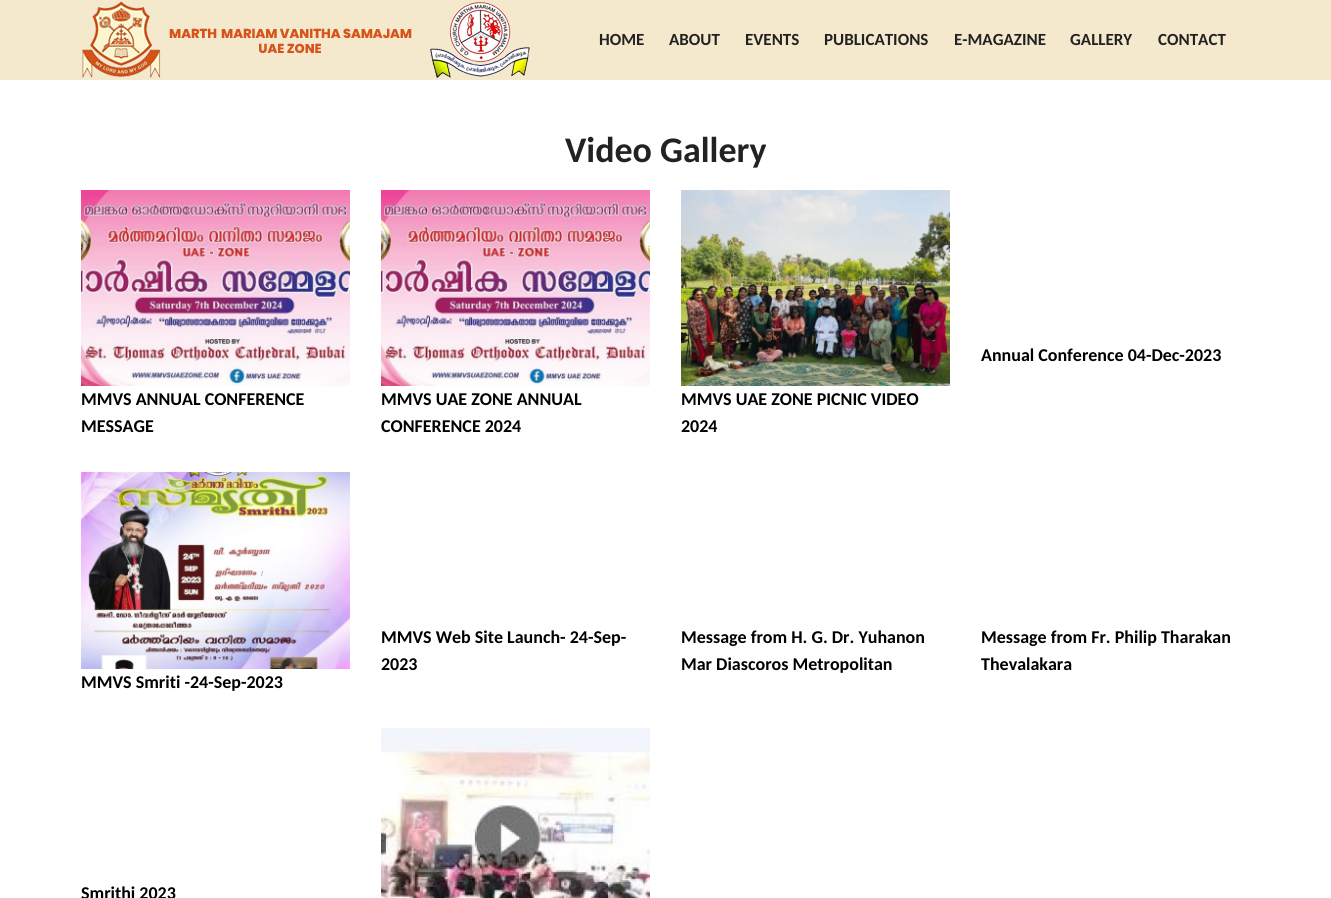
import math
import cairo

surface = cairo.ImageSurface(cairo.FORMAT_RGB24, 1331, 898)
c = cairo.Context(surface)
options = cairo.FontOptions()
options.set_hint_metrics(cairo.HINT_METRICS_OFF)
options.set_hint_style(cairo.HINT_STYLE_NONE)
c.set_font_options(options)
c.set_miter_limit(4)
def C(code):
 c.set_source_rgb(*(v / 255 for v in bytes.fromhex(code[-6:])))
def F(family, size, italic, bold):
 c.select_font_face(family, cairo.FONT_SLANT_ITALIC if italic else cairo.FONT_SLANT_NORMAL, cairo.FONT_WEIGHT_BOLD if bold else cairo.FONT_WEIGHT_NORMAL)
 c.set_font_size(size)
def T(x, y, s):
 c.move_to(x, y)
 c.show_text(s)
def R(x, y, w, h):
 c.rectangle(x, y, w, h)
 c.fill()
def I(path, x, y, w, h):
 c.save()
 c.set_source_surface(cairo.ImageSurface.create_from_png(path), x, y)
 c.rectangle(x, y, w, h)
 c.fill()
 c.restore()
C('ffffff')
c.paint()
C('f4e9cd')
R(0,0,1331,80)
I('1.png',82,1,448,77)
F('Carlito',17,0,1)
C('222222')
T(599,45,'HOME')
T(669,45,'ABOUT')
T(745,45,'EVENTS')
T(824,45,'PUBLICATIONS')
T(954,45,'E-MAGAZINE')
T(1070,45,'GALLERY')
T(1158,45,'CONTACT')
F('Carlito',36,0,1)
T(565,162,'Video Gallery')
F('Carlito',18,0,1)
C('000000')
T(981,361,'Annual Conference 04-Dec-2023')
I('2.png',81,190,269,196)
T(81,405,'MMVS ANNUAL CONFERENCE')
T(81,432,'MESSAGE')
I('2.png',381,190,269,196)
T(381,405,'MMVS UAE ZONE ANNUAL')
T(381,432,'CONFERENCE 2024')
I('3.png',681,190,269,196)
T(681,405,'MMVS UAE ZONE PICNIC VIDEO')
T(681,432,'2024')
T(381,643,'MMVS Web Site Launch- 24-Sep-')
T(381,670,'2023')
T(681,643,'Message from H. G. Dr. Yuhanon')
T(681,670,'Mar Diascoros Metropolitan')
T(981,643,'Message from Fr. Philip Tharakan')
T(981,670,'Thevalakara')
I('4.png',81,472,269,197)
T(81,688,'MMVS Smriti -24-Sep-2023')
T(81,899,'Smrithi 2023')
I('5.png',381,728,269,170)
surface.write_to_png('o.png')
